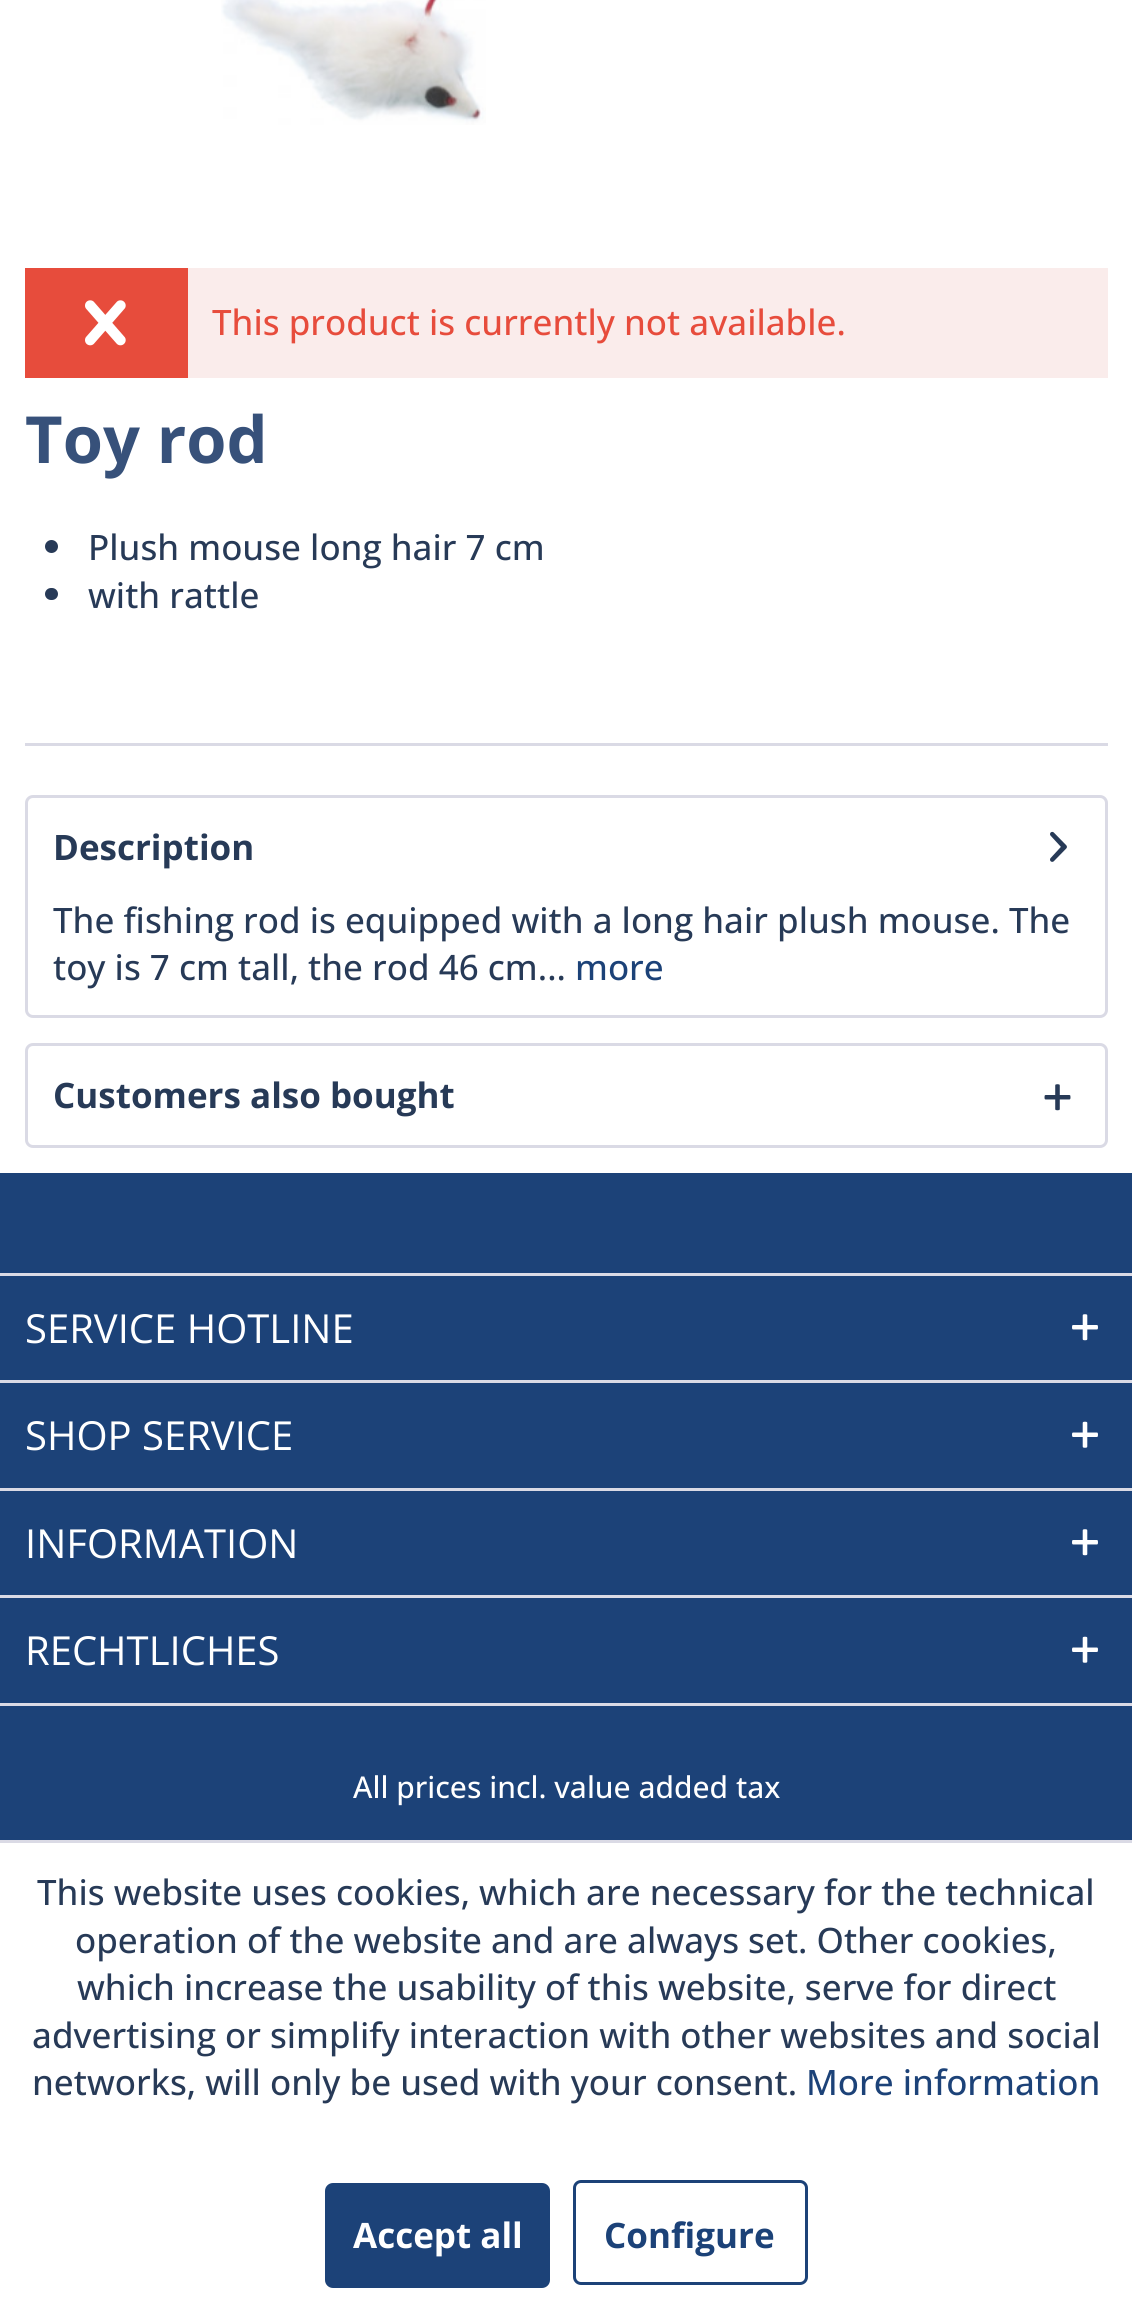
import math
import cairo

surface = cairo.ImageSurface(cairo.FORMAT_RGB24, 1132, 2312)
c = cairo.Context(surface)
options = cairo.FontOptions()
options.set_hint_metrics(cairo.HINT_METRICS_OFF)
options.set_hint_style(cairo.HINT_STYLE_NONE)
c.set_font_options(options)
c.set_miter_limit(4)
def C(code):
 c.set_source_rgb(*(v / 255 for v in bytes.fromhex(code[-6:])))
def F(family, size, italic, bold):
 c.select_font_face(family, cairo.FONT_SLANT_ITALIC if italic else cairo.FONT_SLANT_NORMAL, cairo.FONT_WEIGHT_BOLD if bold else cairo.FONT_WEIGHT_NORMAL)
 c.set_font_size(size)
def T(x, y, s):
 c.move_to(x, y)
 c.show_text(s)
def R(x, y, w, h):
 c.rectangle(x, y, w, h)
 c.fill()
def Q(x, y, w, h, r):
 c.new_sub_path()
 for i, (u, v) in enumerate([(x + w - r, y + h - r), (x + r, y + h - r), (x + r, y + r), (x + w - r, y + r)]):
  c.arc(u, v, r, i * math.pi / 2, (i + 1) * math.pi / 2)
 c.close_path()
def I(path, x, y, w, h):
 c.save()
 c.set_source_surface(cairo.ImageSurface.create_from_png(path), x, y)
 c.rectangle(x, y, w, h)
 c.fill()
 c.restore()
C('ffffff')
c.paint()
I('1.png',221,0,265,125)
C('faeceb')
R(188,268,920,110)
C('e74c3c')
R(25,268,163,110)
I('2.png',85,300,41,46)
F('Open Sans Medium',35,0,0)
T(212,335,'This product is currently not available.')
F('Open Sans',65,0,1)
C('37517a')
T(25,463,'Toy rod')
C('273a57')
c.new_path()
c.arc(51.5,546.5,6.5,0,2 * math.pi)
c.fill()
F('Open Sans Medium',35,0,0)
T(88,560,'Plush mouse long hair 7 cm')
Q(45,588,13,12,6)
c.fill()
T(88,608,'with rattle')
C('dadae5')
R(25,743,1083,3)
Q(26.5,796.5,1080,220,6.5)
c.set_line_width(3)
c.stroke()
F('Open Sans',35,0,1)
C('273a57')
T(53,860,'Description')
I('3.png',1050,831,17,31)
F('Open Sans Medium',35,0,0)
T(53,933,'The fishing rod is equipped with a long hair plush mouse. The')
T(53,980,'toy is 7 cm tall, the rod 46 cm...')
C('1c4278')
T(575,980,'more')
Q(26.5,1044.5,1080,102,6.5)
C('dadae5')
c.stroke()
F('Open Sans',35,0,1)
C('273a57')
T(53,1108,'Customers also bought')
I('4.png',1044,1084,27,27)
C('1c4278')
R(0,1173,1132,667)
C('dadae5')
R(0,1273,1132,3)
F('Open Sans',40,0,0)
C('ffffff')
T(25,1343,'SERVICE HOTLINE')
I('5.png',1072,1314,26,27)
C('dadae5')
R(0,1380,1132,3)
C('ffffff')
T(25,1450,'SHOP SERVICE')
I('6.png',1072,1421,26,27)
C('dadae5')
R(0,1488,1132,3)
C('ffffff')
T(25,1558,'INFORMATION')
I('5.png',1072,1529,26,27)
C('dadae5')
R(0,1595,1132,3)
R(0,1703,1132,3)
C('ffffff')
T(25,1665,'RECHTLICHES')
I('6.png',1072,1636,26,27)
F('Open Sans Medium',30,0,0)
T(353,1798,'All prices incl. value added tax')
C('dadae5')
R(0,1840,1132,3)
F('Open Sans Medium',35,0,0)
C('273a57')
T(37,1905,'This website uses cookies, which are necessary for the technical')
T(75,1953,'operation of the website and are always set. Other cookies,')
T(77,2000,'which increase the usability of this website, serve for direct')
T(32,2048,'advertising or simplify interaction with other websites and social')
T(32,2095,'networks, will only be used with your consent.')
C('1c4278')
T(806,2095,'More information')
Q(326.5,2184.5,222,102,6.5)
c.fill_preserve()
c.stroke()
F('Open Sans',35,0,1)
C('ffffff')
T(353,2248,'Accept all')
Q(574.5,2181.5,232,102,6.5)
C('1c4278')
c.stroke()
T(604,2248,'Configure')
surface.write_to_png('o.png')
